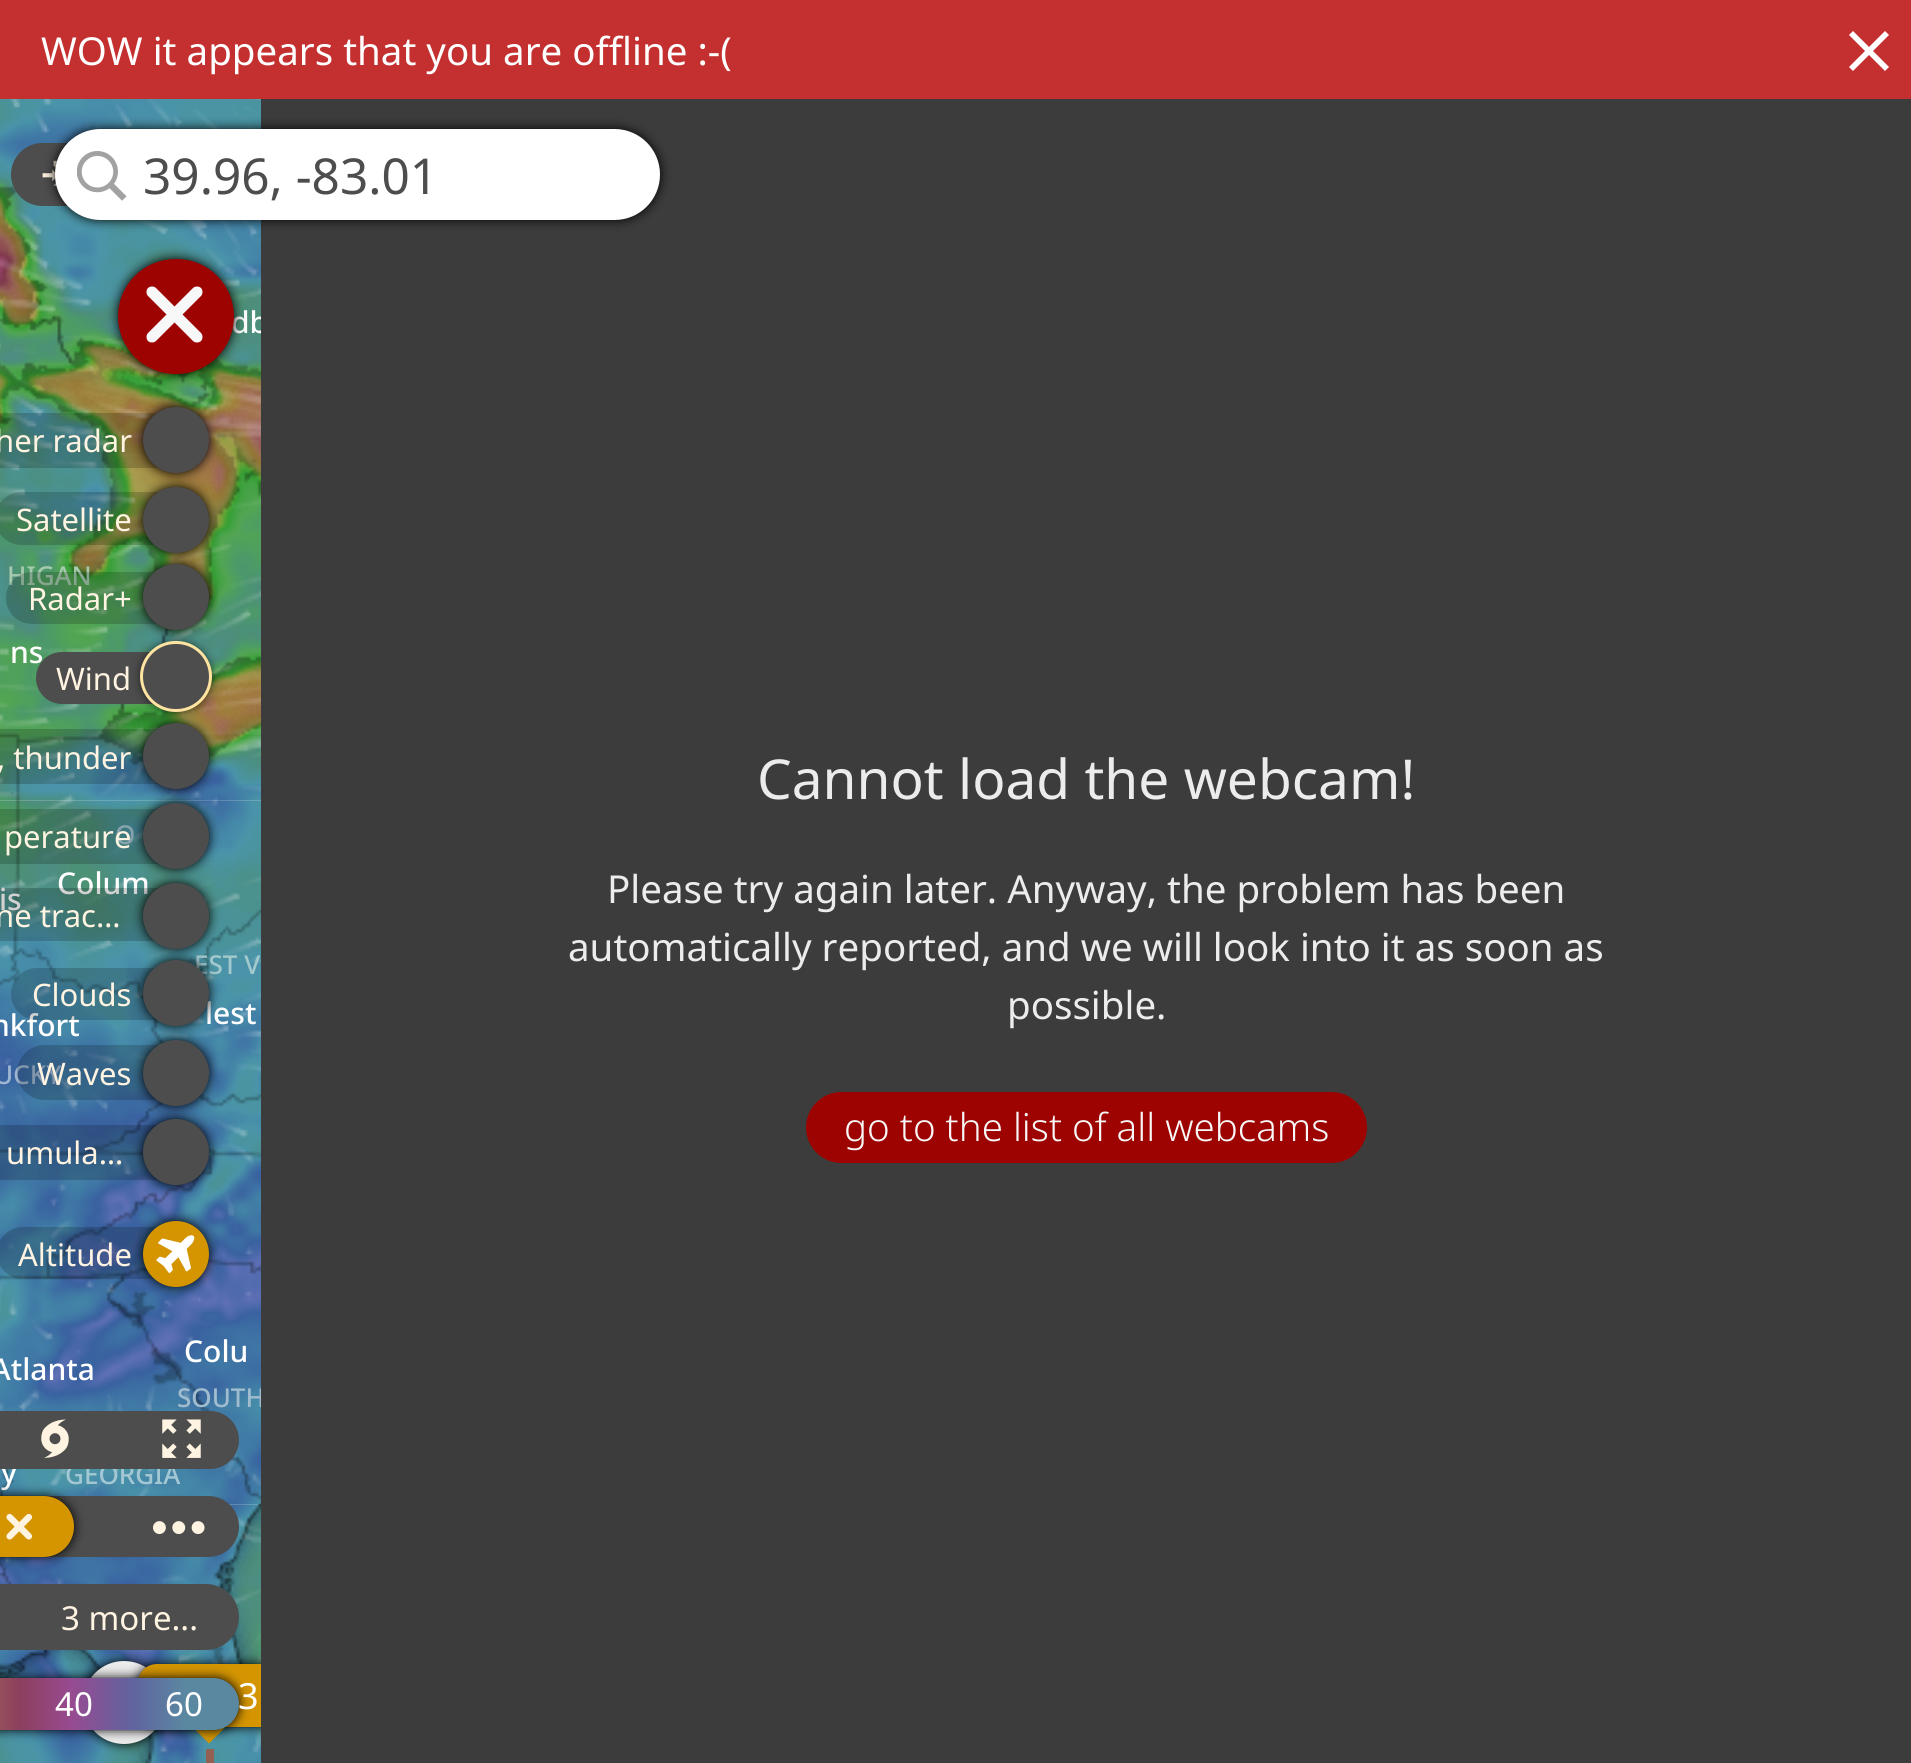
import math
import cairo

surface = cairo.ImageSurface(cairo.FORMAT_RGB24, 1911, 1763)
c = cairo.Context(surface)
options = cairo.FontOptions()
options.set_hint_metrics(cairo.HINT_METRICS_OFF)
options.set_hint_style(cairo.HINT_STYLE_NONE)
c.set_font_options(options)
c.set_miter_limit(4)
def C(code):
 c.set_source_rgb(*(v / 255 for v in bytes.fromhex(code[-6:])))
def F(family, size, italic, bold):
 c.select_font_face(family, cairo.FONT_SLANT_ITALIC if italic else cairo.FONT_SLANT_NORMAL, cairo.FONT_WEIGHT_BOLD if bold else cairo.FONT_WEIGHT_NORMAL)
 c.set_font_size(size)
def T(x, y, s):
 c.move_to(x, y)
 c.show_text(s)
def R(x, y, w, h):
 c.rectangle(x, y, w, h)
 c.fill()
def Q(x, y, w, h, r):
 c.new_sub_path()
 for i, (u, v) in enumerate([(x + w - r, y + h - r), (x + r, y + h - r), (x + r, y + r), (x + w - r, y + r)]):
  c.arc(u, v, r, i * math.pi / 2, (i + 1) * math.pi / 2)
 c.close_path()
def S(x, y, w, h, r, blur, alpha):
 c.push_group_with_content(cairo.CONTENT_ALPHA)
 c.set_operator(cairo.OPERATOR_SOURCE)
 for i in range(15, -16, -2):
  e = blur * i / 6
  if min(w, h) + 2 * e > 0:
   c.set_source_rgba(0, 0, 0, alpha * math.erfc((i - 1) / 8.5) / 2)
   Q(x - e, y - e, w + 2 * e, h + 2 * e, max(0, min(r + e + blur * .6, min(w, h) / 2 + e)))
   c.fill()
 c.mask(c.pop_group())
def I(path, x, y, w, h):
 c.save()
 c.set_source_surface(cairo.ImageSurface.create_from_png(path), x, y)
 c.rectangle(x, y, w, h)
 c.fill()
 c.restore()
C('ffffff')
c.paint()
C('c42f2f')
R(0,0,1911,99)
F('Noto Sans',38.5,0,0)
C('ffffff')
T(41,65,'WOW it appears that you are offline :-(')
c.new_path()
c.move_to(1889,35)
c.line_to(1885,31)
c.line_to(1869,47)
c.line_to(1853,31)
c.line_to(1849,35)
c.line_to(1865,51)
c.line_to(1849,67)
c.line_to(1853,71)
c.line_to(1869,55)
c.line_to(1885,71)
c.line_to(1889,67)
c.line_to(1873,51)
c.close_path()
c.fill()
I('2.png',0,99,261,702)
I('3.png',0,800,261,705)
I('4.png',0,1504,261,259)
I('5.png',0,99,261,1664)
I('6.png',0,186,261,614)
F('Noto Sans Medium',30,0,0)
T(231,333,'db')
I('7.png',0,800,261,704)
F('Noto Sans Medium',26,0,0)
C('a0bcce')
T(177,1407,'SOUTH')
I('8.png',0,1504,261,259)
C('000000')
S(83,1661,82,83,41,5.5,1)
C('ececec')
Q(83,1661,82,83,41)
c.fill()
C('000000')
S(138,1664,286,63,19,5.5,1)
C('d49500')
Q(138,1664,286,63,19)
c.fill()
C('3c3c3c')
R(261,99,1650,1664)
F('Noto Sans',55,0,0)
C('ececec')
T(757,799,'Cannot load the webcam!')
F('Noto Sans',38.5,0,0)
T(607,903,'Please try again later. Anyway, the problem has been')
T(568,961,'automatically reported, and we will look into it as soon as')
T(1007,1019,'possible.')
C('9d0300')
Q(806,1092,561,71,35.5)
c.fill()
F('Noto Sans Light',38.5,0,0)
C('f8f8f8')
T(844,1141,'go to the list of all webcams')
C('4d4d4d')
Q(11,143,206,63,31.5)
c.fill()
I('9.png',42,160,16,26)
C('000000')
S(55,129,605,91,45.5,5.5,1)
C('ffffff')
Q(55,129,605,91,45.5)
c.fill()
I('1.png',77,151,50,50)
F('Noto Sans',49.5,0,0)
C('4d4d4d')
T(143,194,'39.96, -83.01')
F('Noto Sans Medium',26,0,0)
C('a5caae')
T(7,585,'HIGAN')
F('Noto Sans Medium',30,0,0)
C('ffffff')
T(10,663,'ns')
F('Noto Sans Medium',26,0,0)
C('a4c7d4')
T(115,844,'O')
F('Noto Sans Medium',30,0,0)
C('ffffff')
T(57,894,'Colum')
T(-1,910,'is')
F('Noto Sans Medium',26,0,0)
C('a4c9cd')
T(194,974,'EST V')
F('Noto Sans Medium',30,0,0)
C('ffffff')
T(-9,1036,'nkfort')
T(205,1024,'lest')
F('Noto Sans Medium',26,0,0)
C('9eb6d1')
T(-6,1084,'UCKY')
F('Noto Sans Medium',30,0,0)
C('ffffff')
T(184,1362,'Colu')
T(-9,1380,'Atlanta')
T(1,1483,'y')
F('Noto Sans Medium',26,0,0)
C('a4c7d4')
T(65,1484,'GEORGIA')
C('000000')
S(118,259,116,115,57.5,5.5,1)
C('9d0300')
Q(118,259,116,115,57.5)
c.fill()
C('f8f8f8')
c.new_path()
c.move_to(156,288)
c.line_to(201,333)
c.curve_to(203,335,203,339,201,341)
c.curve_to(199,343,195,343,193,341)
c.line_to(148,296)
c.curve_to(146,294,146,290,148,288)
c.curve_to(150,286,154,286,156,288)
c.close_path()
c.fill()
c.new_path()
c.move_to(148,333)
c.line_to(193,288)
c.curve_to(195,286,199,286,201,288)
c.curve_to(203,290,203,294,201,296)
c.line_to(156,341)
c.curve_to(154,343,150,343,148,341)
c.curve_to(146,339,146,335,148,333)
c.close_path()
c.fill()
c.set_source_rgba(0,0,0,0.18)
R(0,413,159,55)
F('Noto Sans',31,0,0)
C('fff3e1')
T(-5,452,'her radar')
C('000000')
S(143,407,66,66,33,5.5,1)
C('4d4d4d')
c.arc(176,440,33,0,2 * math.pi)
c.fill()
c.set_source_rgba(0,0,0,0.18)
c.new_path()
c.move_to(21.5,492)
c.line_to(173,492)
c.line_to(173,545)
c.line_to(21.5,545)
c.curve_to(7,545,-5,533,-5,518.5)
c.curve_to(-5,504,7,492,21.5,492)
c.close_path()
c.fill()
C('fff3e1')
T(16,531,'Satellite')
C('000000')
S(143,487,66,66,33,5.5,1)
C('4d4d4d')
c.arc(176,520,33,0,2 * math.pi)
c.fill()
c.set_source_rgba(0,0,0,0.18)
c.new_path()
c.move_to(32,572)
c.line_to(173,572)
c.line_to(173,624)
c.line_to(32,624)
c.curve_to(17.5,624,6,612.5,6,598)
c.curve_to(6,583.5,17.5,572,32,572)
c.close_path()
c.fill()
C('fff3e1')
T(28,610,'Radar+')
C('000000')
S(143,564,66,66,33,5.5,1)
C('4d4d4d')
c.arc(176,597,33,0,2 * math.pi)
c.fill()
c.new_path()
c.move_to(62,652)
c.line_to(173,652)
c.line_to(173,704)
c.line_to(62,704)
c.curve_to(47.5,704,36,692.5,36,678)
c.curve_to(36,663.5,47.5,652,62,652)
c.close_path()
c.fill()
C('fff3e1')
T(56,690,'Wind')
C('000000')
S(143,644,66,66,33,5.5,1)
C('4d4d4d')
Q(141.5,642.5,69,68,34)
c.fill_preserve()
C('ffe3a1')
c.set_line_width(3)
c.stroke()
c.set_source_rgba(0,0,0,0.18)
R(0,729,159,55)
C('fff3e1')
T(-3,769,', thunder')
C('000000')
S(143,723,66,66,33,5.5,1)
C('4d4d4d')
c.arc(176,756,33,0,2 * math.pi)
c.fill()
c.set_source_rgba(0,0,0,0.18)
R(0,809,159,55)
C('fff3e1')
T(4,848,'perature')
C('000000')
S(143,803,66,66,33,5.5,1)
C('4d4d4d')
c.arc(176,836,33,0,2 * math.pi)
c.fill()
c.set_source_rgba(0,0,0,0.18)
R(0,888,159,53)
C('fff3e1')
T(-5,927,'ne trac…')
C('000000')
S(143,883,66,66,33,5.5,1)
C('4d4d4d')
c.arc(176,916,33,0,2 * math.pi)
c.fill()
c.set_source_rgba(0,0,0,0.18)
c.new_path()
c.move_to(37,968)
c.line_to(173,968)
c.line_to(173,1020)
c.line_to(37,1020)
c.curve_to(22.5,1020,11,1008.5,11,994)
c.curve_to(11,979.5,22.5,968,37,968)
c.close_path()
c.fill()
C('fff3e1')
T(32,1006,'Clouds')
C('000000')
S(143,960,66,66,33,5.5,1)
C('4d4d4d')
c.arc(176,993,33,0,2 * math.pi)
c.fill()
c.set_source_rgba(0,0,0,0.18)
c.new_path()
c.move_to(44.5,1045)
c.line_to(173,1045)
c.line_to(173,1100)
c.line_to(44.5,1100)
c.curve_to(29.5,1100,17,1087.5,17,1072.5)
c.curve_to(17,1057.5,29.5,1045,44.5,1045)
c.close_path()
c.fill()
C('fff3e1')
T(37,1085,'Waves')
C('000000')
S(143,1040,66,66,33,5.5,1)
C('4d4d4d')
c.arc(176,1073,33,0,2 * math.pi)
c.fill()
c.set_source_rgba(0,0,0,0.18)
R(0,1125,159,55)
C('fff3e1')
T(6,1164,'umula…')
C('000000')
S(143,1119,66,66,33,5.5,1)
C('4d4d4d')
c.arc(176,1152,33,0,2 * math.pi)
c.fill()
c.set_source_rgba(0,0,0,0.18)
c.new_path()
c.move_to(23,1227)
c.line_to(173,1227)
c.line_to(173,1279)
c.line_to(23,1279)
c.curve_to(8.5,1279,-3,1267.5,-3,1253)
c.curve_to(-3,1238.5,8.5,1227,23,1227)
c.close_path()
c.fill()
C('fff3e1')
T(18,1266,'Altitude')
C('000000')
S(143,1221,66,66,33,5.5,1)
C('d49500')
c.arc(176,1254,33,0,2 * math.pi)
c.fill()
I('10.png',156,1235,39,39)
C('4d4d4d')
Q(-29,1411,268,58,29)
c.fill()
I('11.png',41,1419,28,39)
I('12.png',162,1419,39,39)
Q(-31,1496,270,61,30.5)
c.fill()
C('000000')
S(-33,1496,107,61,30.5,5.5,1)
C('d49500')
Q(-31,1496,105,61,30.5)
c.fill()
I('13.png',6,1513,27,27)
I('14.png',153,1521,52,13)
C('4d4d4d')
Q(-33,1584,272,66,33)
c.fill()
F('Noto Sans',33,0,0)
C('fff3e1')
T(61,1630,'3 more...')
C('d49500')
c.new_path()
c.move_to(192.5,1727)
c.line_to(225.5,1727)
c.line_to(209,1743.5)
c.close_path()
c.fill()
C('000000')
S(-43,1678,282,52,26,5.5,1)
gradient = cairo.LinearGradient(-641,1704,239,1704)
gradient.add_color_stop_rgba(0,0.384,0.443,0.722,1)
gradient.add_color_stop_rgba(.19,0.384,0.443,0.722,1)
gradient.add_color_stop_rgba(.25,0.239,0.431,0.639,1)
gradient.add_color_stop_rgba(.31,0.29,0.58,0.667,1)
gradient.add_color_stop_rgba(.38,0.29,0.573,0.58,1)
gradient.add_color_stop_rgba(.44,0.302,0.557,0.486,1)
gradient.add_color_stop_rgba(.5,0.298,0.643,0.298,1)
gradient.add_color_stop_rgba(.56,0.404,0.643,0.212,1)
gradient.add_color_stop_rgba(.62,0.635,0.529,0.251,1)
gradient.add_color_stop_rgba(.69,0.635,0.427,0.361,1)
gradient.add_color_stop_rgba(.75,0.553,0.247,0.361,1)
gradient.add_color_stop_rgba(.81,0.592,0.294,0.569,1)
gradient.add_color_stop_rgba(.88,0.373,0.392,0.627,1)
gradient.add_color_stop_rgba(.94,0.357,0.533,0.631,1)
gradient.add_color_stop_rgba(1,0.357,0.533,0.631,1)
c.set_source(gradient)
Q(-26,1678,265,52,26)
c.fill()
C('ffffff')
T(55,1716,'40')
T(165,1716,'60')
F('Noto Sans',36,0,0)
T(238,1709,'3')
C('946051')
R(206,1749,8,14)
surface.write_to_png('o.png')
